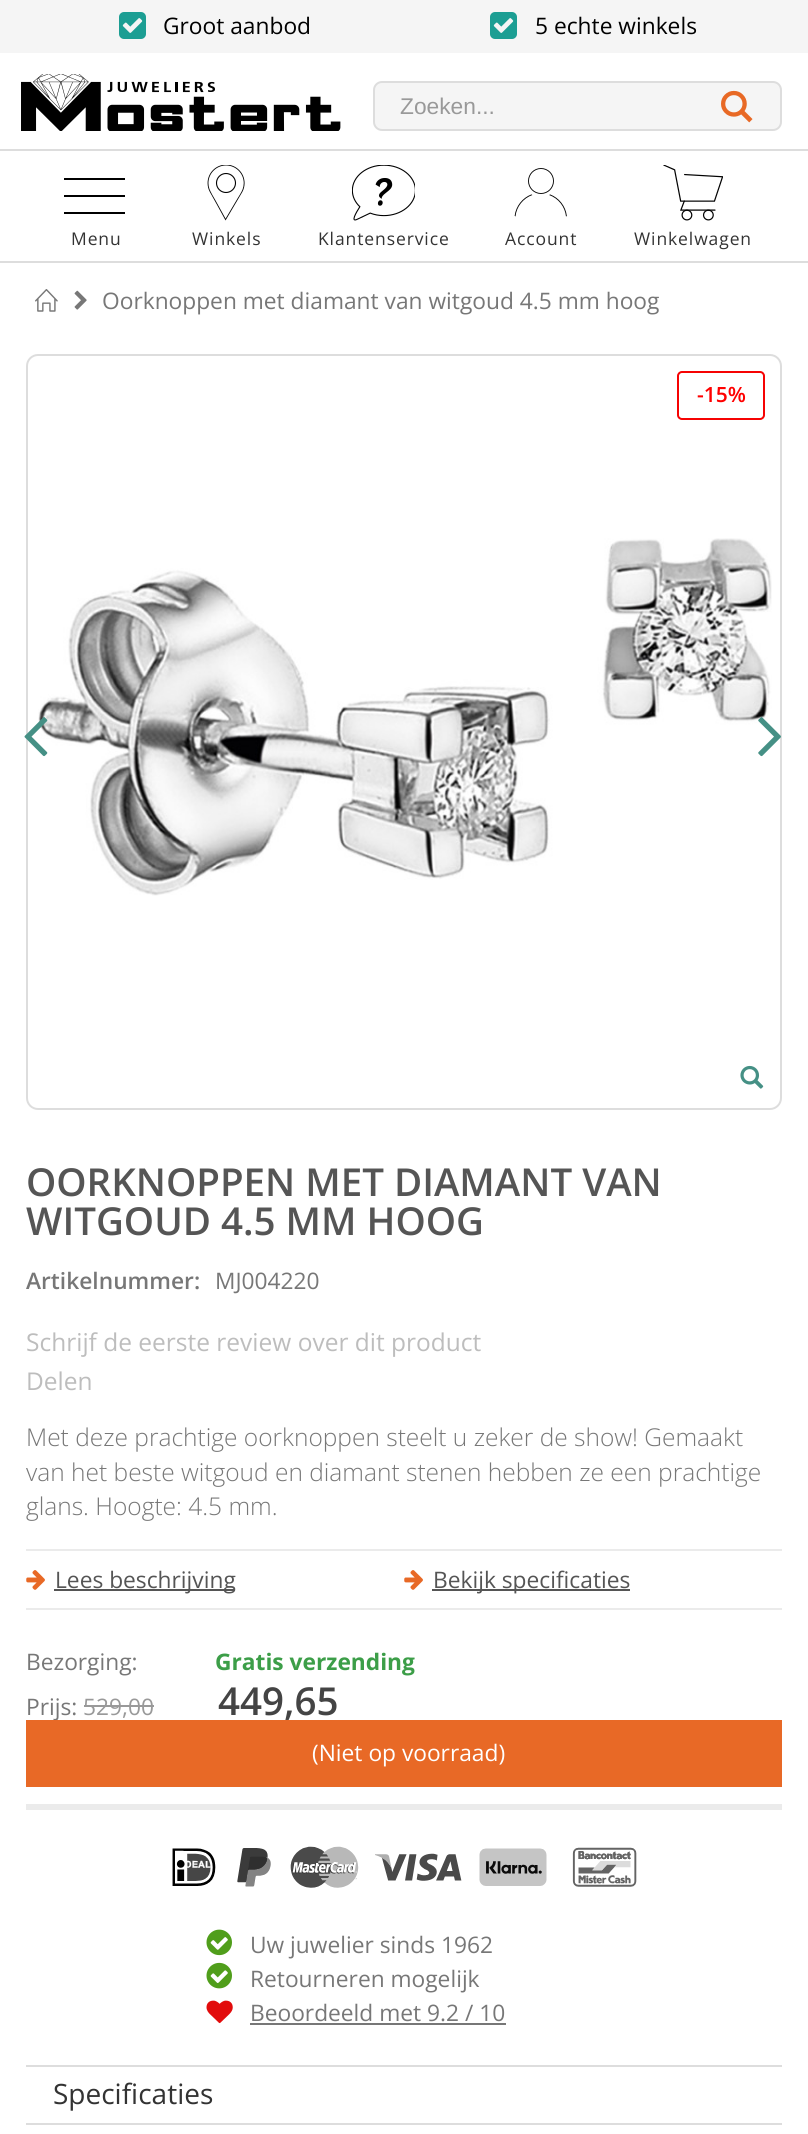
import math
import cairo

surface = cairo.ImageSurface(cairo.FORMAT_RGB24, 808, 2134)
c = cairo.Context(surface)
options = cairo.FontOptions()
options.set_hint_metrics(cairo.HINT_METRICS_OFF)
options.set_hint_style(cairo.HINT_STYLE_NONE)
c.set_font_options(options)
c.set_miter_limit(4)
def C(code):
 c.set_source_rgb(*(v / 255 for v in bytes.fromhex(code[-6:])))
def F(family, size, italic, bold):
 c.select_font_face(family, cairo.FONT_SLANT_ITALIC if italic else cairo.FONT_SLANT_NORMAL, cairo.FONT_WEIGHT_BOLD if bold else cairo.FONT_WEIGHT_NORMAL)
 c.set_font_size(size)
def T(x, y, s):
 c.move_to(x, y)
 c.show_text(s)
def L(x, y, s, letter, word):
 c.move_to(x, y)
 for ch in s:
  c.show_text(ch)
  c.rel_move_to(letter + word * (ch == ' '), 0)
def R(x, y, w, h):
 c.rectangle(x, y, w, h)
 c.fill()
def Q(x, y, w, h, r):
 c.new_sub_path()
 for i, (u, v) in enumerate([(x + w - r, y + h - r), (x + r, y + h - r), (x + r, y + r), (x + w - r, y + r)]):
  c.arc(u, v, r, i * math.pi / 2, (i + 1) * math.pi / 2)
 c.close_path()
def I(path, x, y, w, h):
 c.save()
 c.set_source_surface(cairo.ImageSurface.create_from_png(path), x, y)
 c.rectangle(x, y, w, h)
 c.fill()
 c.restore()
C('ffffff')
c.paint()
C('f5f5f5')
R(0,0,808,53)
I('1.png',119,12,27,27)
F('Open Sans',22.75,0,0)
C('000000')
T(163,34,'Groot aanbod')
I('1.png',490,12,27,27)
T(535,34,'5 echte winkels')
I('2.png',21,74,320,57)
C('f5f5f5')
Q(374,82,407,48,8)
c.fill_preserve()
C('dddddd')
c.stroke()
F('Liberation Sans',22.75,0,0)
C('999999')
T(400,114,'Zoeken...')
I('3.png',721,90,32,33)
C('dddddd')
R(0,149,808,2)
R(0,261,808,2)
C('000000')
R(64,178,61,2)
R(64,195,61,2)
R(64,212,61,2)
F('Open Sans',17.5,0,0)
C('333333')
L(71,245,'Menu',.9,0)
I('4.png',207,165,38,56)
L(192,245,'Winkels',.9,0)
I('5.png',352,165,63,56)
L(318,245,'Klantenservice',.9,0)
I('6.png',514,168,53,49)
L(505,245,'Account',.9,0)
I('7.png',663,165,60,56)
L(634,245,'Winkelwagen',.9,0)
I('8.png',35,289,23,23)
I('9.png',74,290,13,20)
F('Open Sans',22.75,0,0)
C('777777')
T(102,309,'Oorknoppen met diamant van witgoud 4.5 mm hoog')
Q(27,355,754,754,11)
C('dddddd')
c.stroke()
I('10.png',38,538,734,358)
I('11.png',740,1065,24,24)
Q(678,372,86,47,4)
C('f60303')
c.stroke()
F('Open Sans SemiBold',21,0,0)
C('ff0000')
T(697,402,'-15%')
I('12.png',24,717,24,40)
I('13.png',758,717,23,40)
F('Open Sans SemiBold',38.5,0,0)
C('555555')
T(26,1196,'OORKNOPPEN MET DIAMANT VAN')
T(26,1235,'WITGOUD 4.5 MM HOOG')
F('Open Sans SemiBold',22.75,0,0)
C('777777')
T(26,1289,'Artikelnummer:')
F('Open Sans',22.75,0,0)
T(215,1289,'MJ004220')
F('Open Sans',24.5,0,0)
C('bdbdbd')
T(26,1351,'Schrijf de eerste review over dit product')
T(26,1390,'Delen')
C('ebebeb')
R(26,1549,756,2)
F('Open Sans Light',24.5,0,0)
C('777777')
T(26,1446,'Met deze prachtige oorknoppen steelt u zeker de show! Gemaakt')
T(26,1481,'van het beste witgoud en diamant stenen hebben ze een prachtige')
T(26,1515,'glans. Hoogte: 4.5 mm.')
I('14.png',26,1570,19,20)
C('555555')
R(54,1589,181,2)
F('Open Sans',22.75,0,0)
T(55,1588,'Lees beschrijving')
I('14.png',404,1570,19,20)
R(432,1589,198,2)
T(433,1588,'Bekijk specificaties')
C('ebebeb')
R(26,1608,756,2)
R(26,1804,756,6)
C('777777')
T(26,1670,'Bezorging:')
F('Open Sans',22.75,0,1)
C('3c9e48')
T(215,1670,'Gratis verzending')
F('Open Sans',22.75,0,0)
C('777777')
T(26,1715,'Prijs:')
C('999999')
T(83,1715,'529,00')
R(84,1705,70,2)
F('Open Sans SemiBold',38.5,0,0)
C('444444')
T(218,1715,'449,65')
C('e86926')
R(26,1720,756,67)
F('Open Sans',22.75,0,0)
C('ffffff')
T(312,1761,'(Niet op voorraad)')
I('15.png',172,1848,44,38)
I('16.png',237,1848,34,39)
I('17.png',290,1846,69,42)
I('18.png',375,1853,87,28)
I('19.png',479,1848,68,38)
I('20.png',572,1847,65,40)
I('21.png',206,1929,26,27)
C('777777')
T(250,1953,'Uw juwelier sinds 1962')
I('22.png',206,1962,26,27)
T(250,1987,'Retourneren mogelijk')
I('23.png',206,2000,27,24)
T(250,2021,'Beoordeeld met 9.2 / 10')
R(250,2023,256,2)
C('dddddd')
R(26,2065,756,2)
R(26,2123,756,2)
F('Open Sans',28,0,0)
C('333333')
T(53,2104,'Specificaties')
surface.write_to_png('o.png')
